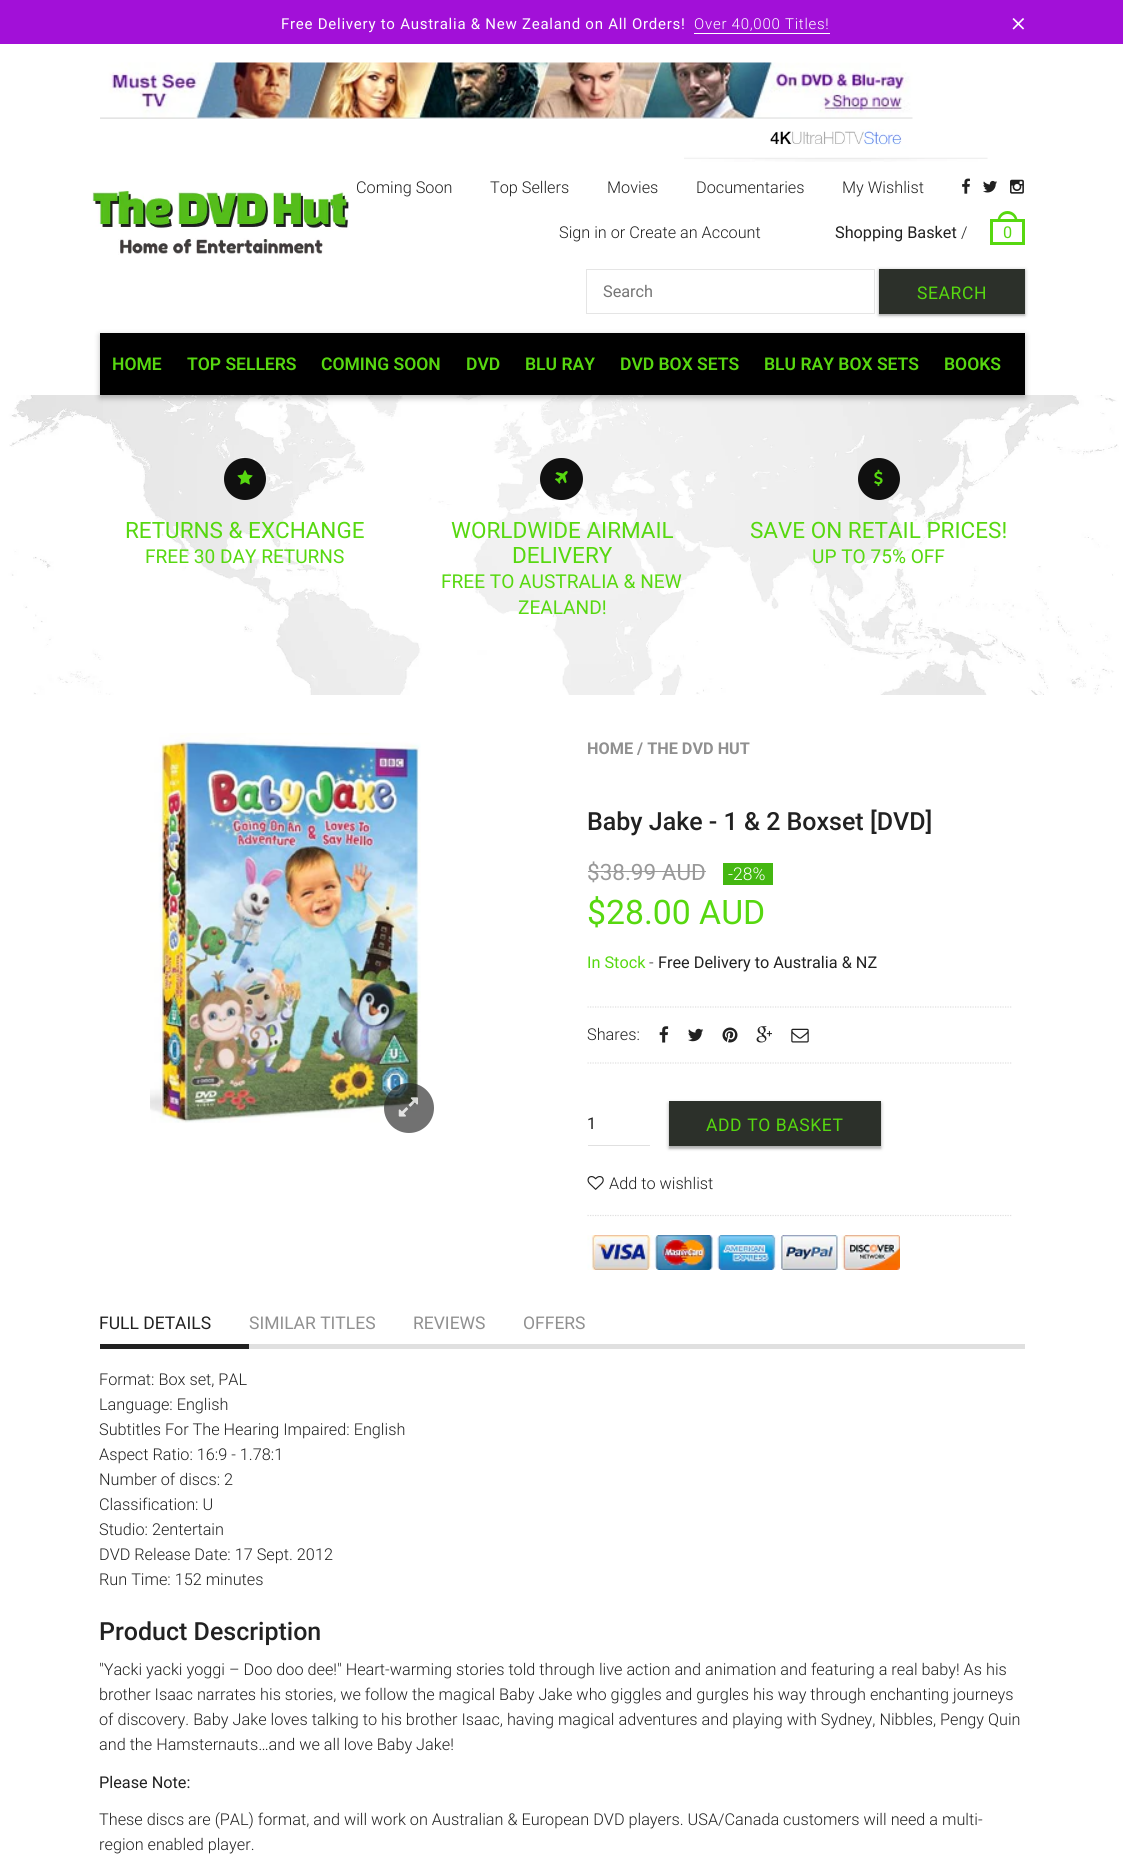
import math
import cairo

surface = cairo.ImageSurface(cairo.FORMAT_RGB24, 1123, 1873)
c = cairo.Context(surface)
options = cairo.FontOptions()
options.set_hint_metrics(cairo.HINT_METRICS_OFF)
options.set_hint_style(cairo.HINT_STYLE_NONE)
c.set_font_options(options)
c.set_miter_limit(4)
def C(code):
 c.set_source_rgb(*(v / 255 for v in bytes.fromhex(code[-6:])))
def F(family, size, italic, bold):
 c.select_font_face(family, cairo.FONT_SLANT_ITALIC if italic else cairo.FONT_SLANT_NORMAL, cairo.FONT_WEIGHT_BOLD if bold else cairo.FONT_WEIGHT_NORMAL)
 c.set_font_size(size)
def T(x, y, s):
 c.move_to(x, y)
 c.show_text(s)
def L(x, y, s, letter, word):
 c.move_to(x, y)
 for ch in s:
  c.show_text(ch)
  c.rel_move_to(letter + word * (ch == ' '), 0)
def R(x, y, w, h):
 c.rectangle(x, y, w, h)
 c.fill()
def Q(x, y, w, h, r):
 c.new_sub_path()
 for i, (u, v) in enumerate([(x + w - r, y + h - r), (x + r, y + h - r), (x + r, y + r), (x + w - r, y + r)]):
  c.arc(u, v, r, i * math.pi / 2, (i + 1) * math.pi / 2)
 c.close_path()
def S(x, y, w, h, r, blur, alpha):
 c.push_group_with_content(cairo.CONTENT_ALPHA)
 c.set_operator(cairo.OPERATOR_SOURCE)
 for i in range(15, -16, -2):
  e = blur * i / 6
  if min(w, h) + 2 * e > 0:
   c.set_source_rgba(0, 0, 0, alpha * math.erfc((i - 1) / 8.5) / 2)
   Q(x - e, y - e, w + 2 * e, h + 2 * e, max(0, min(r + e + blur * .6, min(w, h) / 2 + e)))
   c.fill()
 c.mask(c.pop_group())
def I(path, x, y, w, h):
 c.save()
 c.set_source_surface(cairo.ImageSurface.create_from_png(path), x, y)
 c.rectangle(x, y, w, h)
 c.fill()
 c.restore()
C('ffffff')
c.paint()
C('a210d8')
R(0,0,1123,44)
F('Roboto',15,0,0)
C('ffffff')
L(281,29,'Free Delivery to Australia & New Zealand on All Orders!',.75,0)
F('Roboto Light',15,0,0)
L(694,29,'Over 40,000 Titles!',.75,0)
R(694,33,136,1)
I('1.png',1012,18,13,12)
I('2.png',100,62,813,57)
I('3.png',684,118,304,44)
I('4.png',92,190,257,65)
F('Roboto Light',16.25,0,0)
C('212121')
T(356,193,'Coming Soon')
T(490,193,'Top Sellers')
T(607,193,'Movies')
T(696,193,'Documentaries')
T(842,193,'My Wishlist')
I('5.png',962,178,8,16)
I('6.png',983,180,14,13)
I('7.png',1010,179,14,15)
T(559,238,'Sign in or Create an Account')
F('Roboto',16.25,0,0)
T(835,238,'Shopping Basket')
F('Roboto Light',16.25,0,0)
T(961,238,'/')
C('57d810')
c.set_fill_rule(cairo.FILL_RULE_EVEN_ODD)
c.new_path()
c.move_to(1007.5,211)
c.curve_to(1013,211,1017.5,215.5,1017.5,221)
c.line_to(997.5,221)
c.curve_to(997.5,215.5,1002,211,1007.5,211)
c.close_path()
c.move_to(1007.5,214)
c.curve_to(1011.5,214,1015,217,1015,221)
c.line_to(1000,221)
c.curve_to(1000,217,1003.5,214,1007.5,214)
c.close_path()
c.fill()
c.rectangle(991.5,220.5,32,23)
c.set_line_width(3)
c.stroke()
F('Roboto',16.25,0,0)
T(1003,238,'0')
c.rectangle(586.5,269.5,288,44)
C('e5e5e5')
c.set_line_width(1)
c.stroke()
C('757575')
T(603,297,'Search')
C('000000')
S(879,270,146,45,0,2,.3)
S(879,271,146,45,0,.5,.1)
C('2c302a')
R(879,269,146,45)
F('Roboto',17.5,0,0)
C('57d810')
L(917,299,'SEARCH',.6,0)
I('8.png',0,395,1123,300)
C('000000')
S(100,335,925,63,0,3,.26)
C('000000')
R(100,333,925,62)
F('Roboto SemiBold',17.5,0,0)
C('57d810')
T(112,370,'HOME')
T(187,370,'TOP SELLERS')
T(321,370,'COMING SOON')
T(466,370,'DVD')
T(525,370,'BLU RAY')
T(620,370,'DVD BOX SETS')
T(764,370,'BLU RAY BOX SETS')
T(944,370,'BOOKS')
C('101010')
c.new_path()
c.arc(245,479,21,0,2 * math.pi)
c.fill()
I('9.png',237,470,16,15)
F('Roboto',22.5,0,0)
C('57d810')
T(125,538,'RETURNS & EXCHANGE')
F('Roboto',19.1,0,0)
T(145,563,'FREE 30 DAY RETURNS')
C('101010')
Q(540,458,43,42,21)
c.fill()
I('10.png',555,471,13,13)
F('Roboto',22.5,0,0)
C('57d810')
T(451,538,'WORLDWIDE AIRMAIL')
T(512,563,'DELIVERY')
F('Roboto',19.1,0,0)
T(441,588,'FREE TO AUSTRALIA & NEW')
T(518,614,'ZEALAND!')
C('101010')
c.new_path()
c.arc(879,479,21,0,2 * math.pi)
c.fill()
I('11.png',874,469,9,18)
F('Roboto',22.5,0,0)
C('57d810')
T(750,538,'SAVE ON RETAIL PRICES!')
F('Roboto',19.1,0,0)
T(812,563,'UP TO 75% OFF')
I('12.png',150,733,271,390)
c.set_source_rgba(0.129,0.129,0.129,0.64)
c.arc(409,1108,25,0,2 * math.pi)
c.fill()
I('13.png',398,1097,21,20)
F('Roboto',16.25,0,1)
C('909090')
T(587,754,'HOME / THE DVD HUT')
F('Roboto Medium',25,0,0)
C('212121')
T(587,830,'Baby Jake - 1 & 2 Boxset [DVD]')
F('Roboto',22.5,0,0)
C('999999')
T(587,880,'$38.99 AUD')
R(588,871,118,1)
C('44b711')
R(723,863,50,22)
F('Roboto Light',17.5,0,0)
C('ffffff')
T(728,880,'-28%')
F('Roboto',33.75,0,0)
C('57d810')
T(587,924,'$28.00 AUD')
F('Roboto',16.25,0,0)
T(587,968,'In Stock')
F('Roboto Light',16.25,0,0)
C('212121')
T(649,968,'-')
F('Roboto',16.25,0,0)
T(658,968,'Free Delivery to Australia & NZ')
c.new_path()
c.move_to(587.5,1007)
c.line_to(1012.5,1007)
C('e0e0e0')
c.set_line_width(1.2)
c.set_dash([1.25,1.25])
c.stroke()
c.new_path()
c.move_to(587.5,1063)
c.line_to(1012.5,1063)
c.stroke()
F('Roboto Light',16.25,0,0)
C('212121')
T(587,1040,'Shares:')
I('14.png',659,1026,10,17)
I('15.png',688,1028,16,14)
I('16.png',722,1027,16,16)
I('17.png',756,1026,16,17)
I('18.png',791,1028,18,15)
C('e0e0e0')
R(588,1145,62,1)
F('Roboto',16.25,0,0)
C('212121')
T(587,1129,'1')
C('000000')
S(669,1103,212,45,0,2,.3)
S(669,1104,212,45,0,.5,.1)
C('2c302a')
R(669,1101,212,45)
F('Roboto',17.5,0,0)
C('57d810')
L(706,1131,'ADD TO BASKET',.6,0)
I('19.png',587,1176,17,14)
F('Roboto Light',16.25,0,0)
C('212121')
T(609,1189,'Add to wishlist')
c.new_path()
c.move_to(587.5,1215.5)
c.line_to(1012.5,1215.5)
C('e0e0e0')
c.stroke()
I('20.png',587,1235,313,35)
C('212121')
R(100,1344,149,5)
F('Roboto',17.5,0,0)
T(99,1329,'FULL DETAILS')
C('909090')
T(249,1329,'SIMILAR TITLES')
T(413,1329,'REVIEWS')
T(523,1329,'OFFERS')
C('e0e0e0')
R(249,1344,776,5)
F('Roboto Light',16.25,0,0)
C('212121')
T(99,1385,'Format: Box set, PAL')
T(99,1410,'Language: English')
T(99,1435,'Subtitles For The Hearing Impaired: English')
T(99,1460,'Aspect Ratio: 16:9 - 1.78:1')
T(99,1485,'Number of discs: 2')
T(99,1510,'Classification: U')
T(99,1535,'Studio: 2entertain')
T(99,1560,'DVD Release Date: 17 Sept. 2012')
T(99,1585,'Run Time: 152 minutes')
F('Roboto Medium',25,0,0)
T(99,1640,'Product Description')
F('Roboto Light',16.25,0,0)
T(99,1675,'"Yacki yacki yoggi – Doo doo dee!" Heart-warming stories told through live action and animation and featuring a real baby! As his')
T(99,1700,'brother Isaac narrates his stories, we follow the magical Baby Jake who giggles and gurgles his way through enchanting journeys')
T(99,1725,'of discovery. Baby Jake loves talking to his brother Isaac, having magical adventures and playing with Sydney, Nibbles, Pengy Quin')
T(99,1750,'and the Hamsternauts…and we all love Baby Jake!')
F('Roboto',16.25,0,0)
T(99,1788,'Please Note:')
F('Roboto Light',16.25,0,0)
T(99,1825,'These discs are (PAL) format, and will work on Australian & European DVD players. USA/Canada customers will need a multi-')
T(99,1850,'region enabled player.')
surface.write_to_png('o.png')
